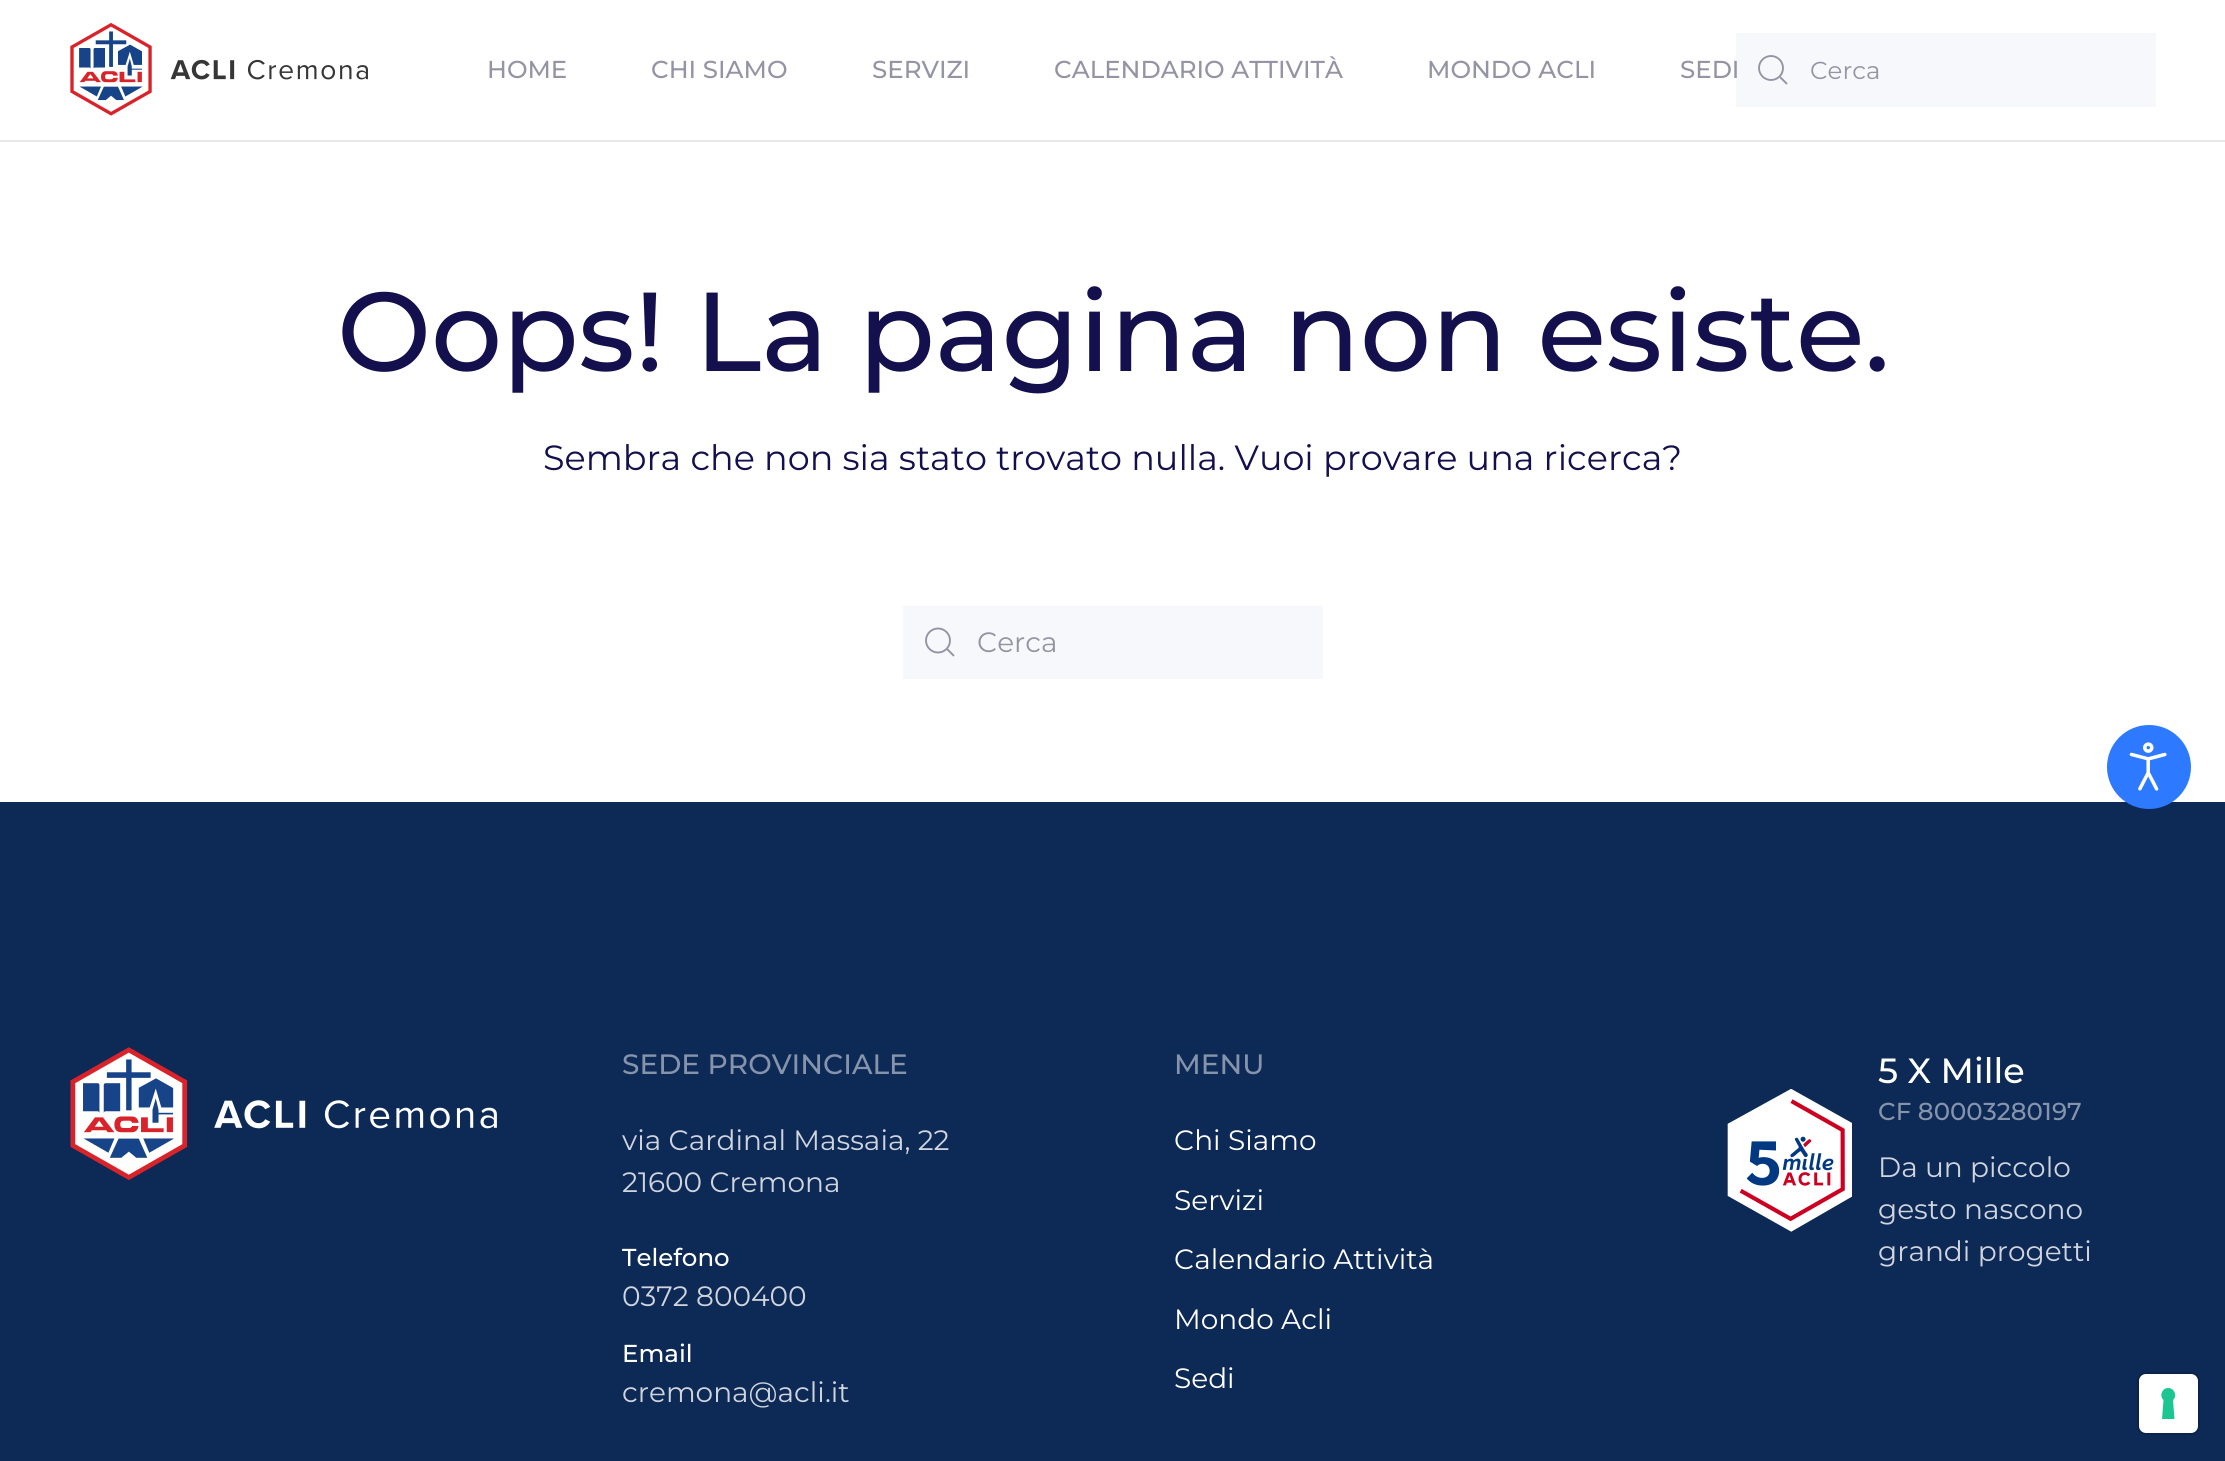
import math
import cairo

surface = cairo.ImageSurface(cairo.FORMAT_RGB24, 2225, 1461)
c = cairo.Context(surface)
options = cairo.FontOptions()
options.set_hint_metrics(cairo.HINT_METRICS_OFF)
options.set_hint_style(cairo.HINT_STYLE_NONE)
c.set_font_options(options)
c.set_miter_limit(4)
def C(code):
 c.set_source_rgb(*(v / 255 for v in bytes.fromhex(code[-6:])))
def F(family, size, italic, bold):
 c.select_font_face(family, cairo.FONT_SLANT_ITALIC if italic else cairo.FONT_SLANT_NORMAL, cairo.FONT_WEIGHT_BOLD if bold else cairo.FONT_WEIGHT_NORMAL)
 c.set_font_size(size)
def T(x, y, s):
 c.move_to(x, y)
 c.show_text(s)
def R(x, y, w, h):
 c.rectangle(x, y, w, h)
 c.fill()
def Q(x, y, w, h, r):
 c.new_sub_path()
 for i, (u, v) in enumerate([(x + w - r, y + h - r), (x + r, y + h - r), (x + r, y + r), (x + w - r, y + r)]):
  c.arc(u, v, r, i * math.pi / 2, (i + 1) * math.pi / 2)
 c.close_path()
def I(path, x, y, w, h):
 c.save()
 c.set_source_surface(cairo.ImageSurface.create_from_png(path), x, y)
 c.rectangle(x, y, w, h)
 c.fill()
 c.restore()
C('ffffff')
c.paint()
C('e7e8eb')
R(0,140,2225,2)
I('1.png',70,23,298,93)
F('Montserrat Thin',24.5,0,0)
C('9494a5')
T(487,78,'HOME')
T(651,78,'CHI SIAMO')
T(872,78,'SERVIZI')
T(1054,78,'CALENDARIO ATTIVITÀ')
T(1427,78,'MONDO ACLI')
C('f6f8fb')
R(1736,33,420,74)
C('9494a5')
T(1680,78,'SEDI')
c.new_path()
c.arc(1771,68,12,0,2 * math.pi)
c.set_line_width(1.9)
c.stroke()
c.new_path()
c.move_to(1780,77)
c.line_to(1787,84)
c.close_path()
c.stroke()
F('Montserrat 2 Thin',24.5,0,0)
T(1810,79,'Cerca')
F('Montserrat Thin',112,0,0)
C('140f4d')
T(337,371,'Oops! La pagina non esiste.')
F('Montserrat 2 Thin',35,0,0)
T(543,470,'Sembra che non sia stato trovato nulla. Vuoi provare una ricerca?')
C('f6f8fb')
R(903,606,420,73)
c.new_path()
c.arc(938,640.5,12,0,2 * math.pi)
C('9494a5')
c.stroke()
c.new_path()
c.move_to(947,649)
c.line_to(954,656)
c.close_path()
c.stroke()
F('Montserrat 2 Thin',28,0,0)
T(977,652,'Cerca')
C('0d2956')
R(0,802,2225,659)
I('2.png',70,1047,427,134)
F('Montserrat Thin',28,0,0)
C('8694ab')
T(622,1074,'SEDE PROVINCIALE')
F('Montserrat 2 Thin',28,0,0)
C('cfd4dd')
T(622,1150,'via Cardinal Massaia, 22')
T(622,1192,'21600 Cremona')
F('Montserrat Thin',24.5,0,0)
C('ffffff')
T(622,1266,'Telefono')
F('Montserrat 2 Thin',28,0,0)
C('cfd4dd')
T(622,1306,'0372 800400')
F('Montserrat Thin',24.5,0,0)
C('ffffff')
T(622,1362,'Email')
F('Montserrat 2 Thin',28,0,0)
C('cfd4dd')
T(622,1402,'cremona@acli.it')
F('Montserrat Thin',28,0,0)
C('8694ab')
T(1174,1074,'MENU')
F('Montserrat 2 Thin',28,0,0)
C('ffffff')
T(1174,1150,'Chi Siamo')
T(1174,1210,'Servizi')
T(1174,1269,'Calendario Attività')
T(1174,1329,'Mondo Acli')
T(1174,1388,'Sedi')
I('3.png',1727,1089,125,143)
F('Montserrat Thin',35,0,0)
T(1878,1083,'5 X Mille')
F('Montserrat Thin',24.5,0,0)
C('8694ab')
T(1878,1120,'CF 80003280197')
F('Montserrat 2 Thin',28,0,0)
C('cfd4dd')
T(1878,1177,'Da un piccolo')
T(1878,1219,'gesto nascono')
T(1878,1261,'grandi progetti')
C('2d79ff')
c.new_path()
c.arc(2149,767,42,0,2 * math.pi)
c.fill()
I('4.png',2129,742,38,49)
Q(2138,1373,61,61,8)
C('0b2349')
c.set_line_width(2)
c.stroke()
C('ffffff')
Q(2139,1374,59,59,7)
c.fill()
C('1cc691')
c.set_fill_rule(cairo.FILL_RULE_EVEN_ODD)
c.new_path()
c.move_to(2168,1388)
c.curve_to(2174.5,1388,2177.5,1396,2173,1400)
c.line_to(2174.5,1419)
c.line_to(2162,1419)
c.line_to(2163.5,1400)
c.curve_to(2159,1396,2162,1388,2168,1388)
c.close_path()
c.fill()
surface.write_to_png('o.png')
